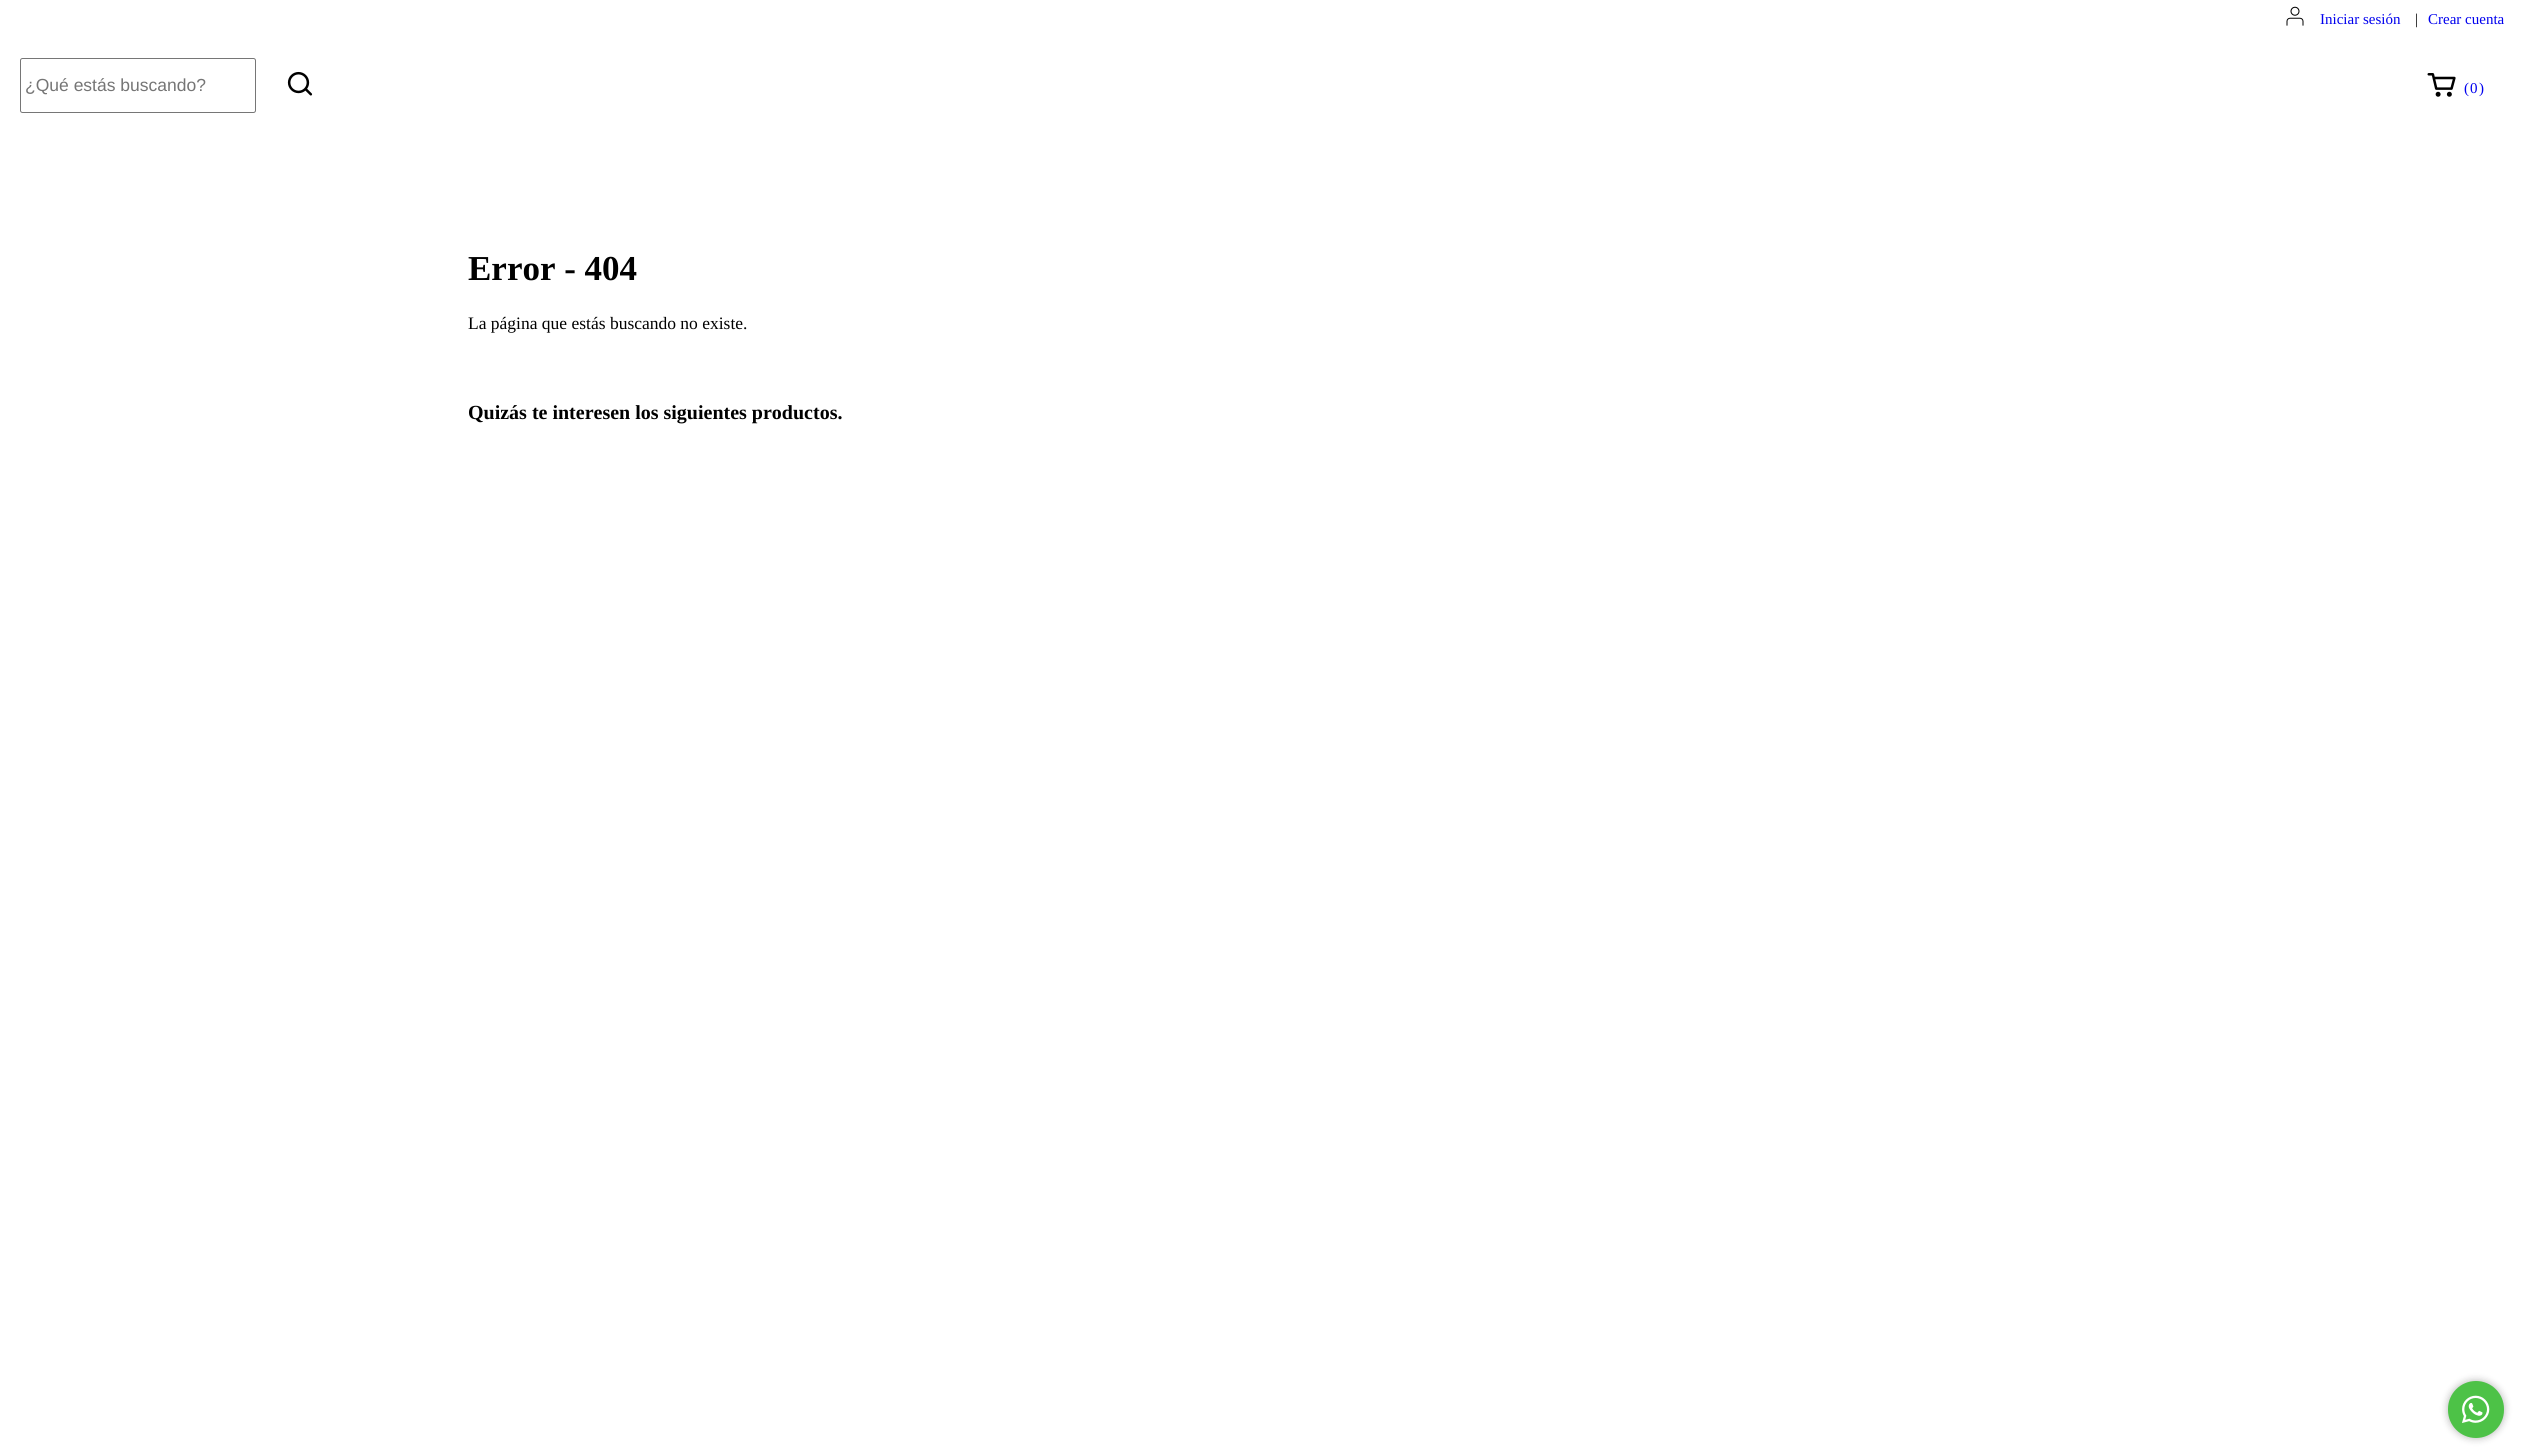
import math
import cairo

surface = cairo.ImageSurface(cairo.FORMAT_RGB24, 2522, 1456)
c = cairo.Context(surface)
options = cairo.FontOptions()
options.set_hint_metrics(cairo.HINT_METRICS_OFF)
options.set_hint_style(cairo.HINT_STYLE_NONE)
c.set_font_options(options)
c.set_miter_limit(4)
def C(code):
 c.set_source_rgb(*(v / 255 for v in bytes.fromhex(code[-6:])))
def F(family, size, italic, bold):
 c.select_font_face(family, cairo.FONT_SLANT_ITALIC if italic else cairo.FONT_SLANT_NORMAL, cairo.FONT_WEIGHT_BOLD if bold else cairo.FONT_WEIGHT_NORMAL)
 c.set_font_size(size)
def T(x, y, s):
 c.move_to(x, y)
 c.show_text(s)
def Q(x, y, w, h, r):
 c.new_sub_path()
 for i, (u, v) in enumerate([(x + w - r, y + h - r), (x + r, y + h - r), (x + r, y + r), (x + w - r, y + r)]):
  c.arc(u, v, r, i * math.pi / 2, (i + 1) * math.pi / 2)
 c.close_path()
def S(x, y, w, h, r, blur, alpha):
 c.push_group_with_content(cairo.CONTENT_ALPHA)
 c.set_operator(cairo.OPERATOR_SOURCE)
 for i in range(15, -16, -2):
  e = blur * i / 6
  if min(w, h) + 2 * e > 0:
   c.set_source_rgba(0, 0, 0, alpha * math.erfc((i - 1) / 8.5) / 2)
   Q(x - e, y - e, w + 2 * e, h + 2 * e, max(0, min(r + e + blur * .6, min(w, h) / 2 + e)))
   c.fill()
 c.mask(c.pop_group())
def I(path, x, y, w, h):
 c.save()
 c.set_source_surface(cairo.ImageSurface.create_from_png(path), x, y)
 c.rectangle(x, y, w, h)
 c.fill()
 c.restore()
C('ffffff')
c.paint()
I('1.png',2286,6,18,20)
F('Liberation Serif',15,0,0)
C('0000ee')
T(2320,24,'Iniciar sesión')
C('000000')
T(2415,24,'|')
C('0000ee')
T(2428,24,'Crear cuenta')
Q(20.5,58.5,235,54,2)
C('767676')
c.set_line_width(1)
c.stroke()
F('Liberation Sans',17.5,0,0)
C('757575')
T(25,91,'¿Qué estás buscando?')
I('2.png',287,71,26,25)
I('3.png',2427,73,29,24)
F('Liberation Serif',15,0,0)
C('0000ee')
T(2464,93,'(')
T(2470,93,'0')
T(2479,93,')')
F('Liberation Serif',35,0,1)
C('000000')
T(468,280,'Error - 404')
F('Liberation Serif',17.5,0,0)
T(468,329,'La página que estás buscando no existe.')
F('Liberation Serif',20,0,1)
T(468,419,'Quizás te interesen los siguientes productos.')
C('000000')
S(2448,1381,56,57,28,4,.3)
C('4dc247')
Q(2448,1381,56,57,28)
c.fill()
I('4.png',2462,1395,28,28)
surface.write_to_png('o.png')
